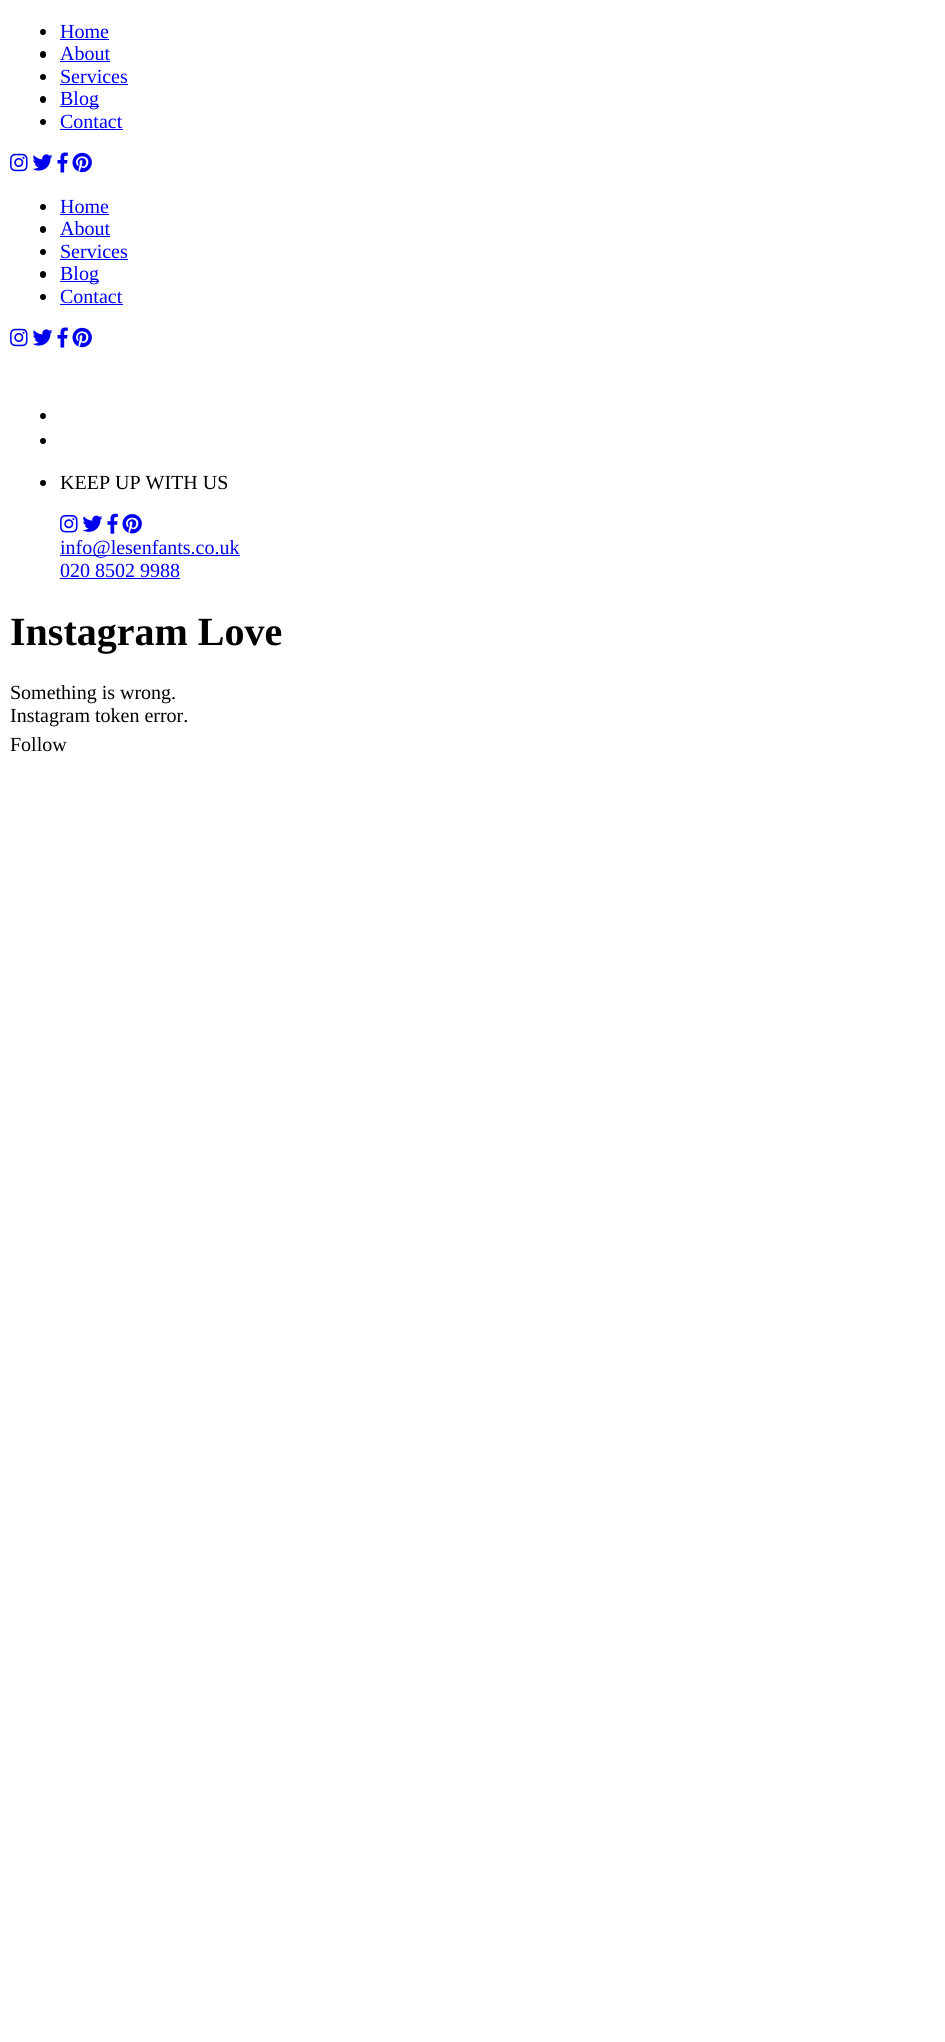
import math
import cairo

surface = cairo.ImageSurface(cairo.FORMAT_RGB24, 945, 2042)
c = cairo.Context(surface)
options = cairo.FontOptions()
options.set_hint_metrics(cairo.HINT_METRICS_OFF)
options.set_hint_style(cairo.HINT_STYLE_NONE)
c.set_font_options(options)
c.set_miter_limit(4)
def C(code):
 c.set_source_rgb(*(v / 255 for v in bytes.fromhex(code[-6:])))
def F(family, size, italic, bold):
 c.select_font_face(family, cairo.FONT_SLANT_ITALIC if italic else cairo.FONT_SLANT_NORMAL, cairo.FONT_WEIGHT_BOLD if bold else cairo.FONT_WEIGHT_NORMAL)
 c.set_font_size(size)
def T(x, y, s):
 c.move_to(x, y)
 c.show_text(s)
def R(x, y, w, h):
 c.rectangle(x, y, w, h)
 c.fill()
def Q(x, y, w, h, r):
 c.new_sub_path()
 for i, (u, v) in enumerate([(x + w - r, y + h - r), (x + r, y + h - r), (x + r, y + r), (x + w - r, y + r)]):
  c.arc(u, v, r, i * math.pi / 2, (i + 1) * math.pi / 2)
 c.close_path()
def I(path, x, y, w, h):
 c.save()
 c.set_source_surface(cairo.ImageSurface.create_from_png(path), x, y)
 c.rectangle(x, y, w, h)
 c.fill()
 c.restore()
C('ffffff')
c.paint()
C('000000')
c.arc(43,32,3,0,2 * math.pi)
c.fill()
F('Liberation Serif',20,0,0)
C('0000ee')
T(60,38,'Home')
R(60,39,49,1)
C('000000')
Q(40,51,6,7,3)
c.fill()
C('0000ee')
T(60,60,'About')
R(60,61,50,1)
C('000000')
c.new_path()
c.arc(43,77,3,0,2 * math.pi)
c.fill()
C('0000ee')
T(60,83,'Services')
R(60,84,68,1)
C('000000')
Q(40,96,6,7,3)
c.fill()
C('0000ee')
R(60,106,39,1)
T(60,105,'Blog')
C('000000')
c.new_path()
c.arc(43,122,3,0,2 * math.pi)
c.fill()
C('0000ee')
T(60,128,'Contact')
R(60,129,63,1)
I('1.png',10,153,18,19)
I('2.png',32,154,21,17)
I('3.png',57,152,11,21)
I('4.png',72,152,20,21)
C('000000')
c.arc(43,207,3,0,2 * math.pi)
c.fill()
C('0000ee')
T(60,213,'Home')
R(60,214,49,1)
C('000000')
Q(40,226,6,7,3)
c.fill()
C('0000ee')
T(60,235,'About')
R(60,236,50,1)
C('000000')
c.new_path()
c.arc(43,252,3,0,2 * math.pi)
c.fill()
C('0000ee')
T(60,258,'Services')
R(60,259,68,1)
C('000000')
Q(40,271,6,7,3)
c.fill()
C('0000ee')
R(60,281,39,1)
T(60,280,'Blog')
C('000000')
c.new_path()
c.arc(43,297,3,0,2 * math.pi)
c.fill()
C('0000ee')
T(60,303,'Contact')
R(60,304,63,1)
I('1.png',10,328,18,19)
I('2.png',32,329,21,17)
I('3.png',57,327,11,21)
I('4.png',72,327,20,21)
C('000000')
c.arc(43,416,3,0,2 * math.pi)
c.fill()
c.arc(43,441,3,0,2 * math.pi)
c.fill()
c.arc(43,483,3,0,2 * math.pi)
c.fill()
T(60,489,'KEEP UP WITH US')
I('5.png',60,515,18,18)
I('6.png',82,515,21,17)
I('7.png',107,513,11,21)
I('8.png',122,514,20,20)
C('0000ee')
R(60,555,180,1)
T(60,554,'info@lesenfants.co.uk')
T(60,577,'020 8502 9988')
R(60,578,120,1)
F('Liberation Serif',40,0,1)
C('000000')
T(10,645,'Instagram Love')
F('Liberation Serif',20,0,0)
T(10,699,'Something is wrong.')
T(10,722,'Instagram token error.')
T(10,751,'Follow')
surface.write_to_png('o.png')
